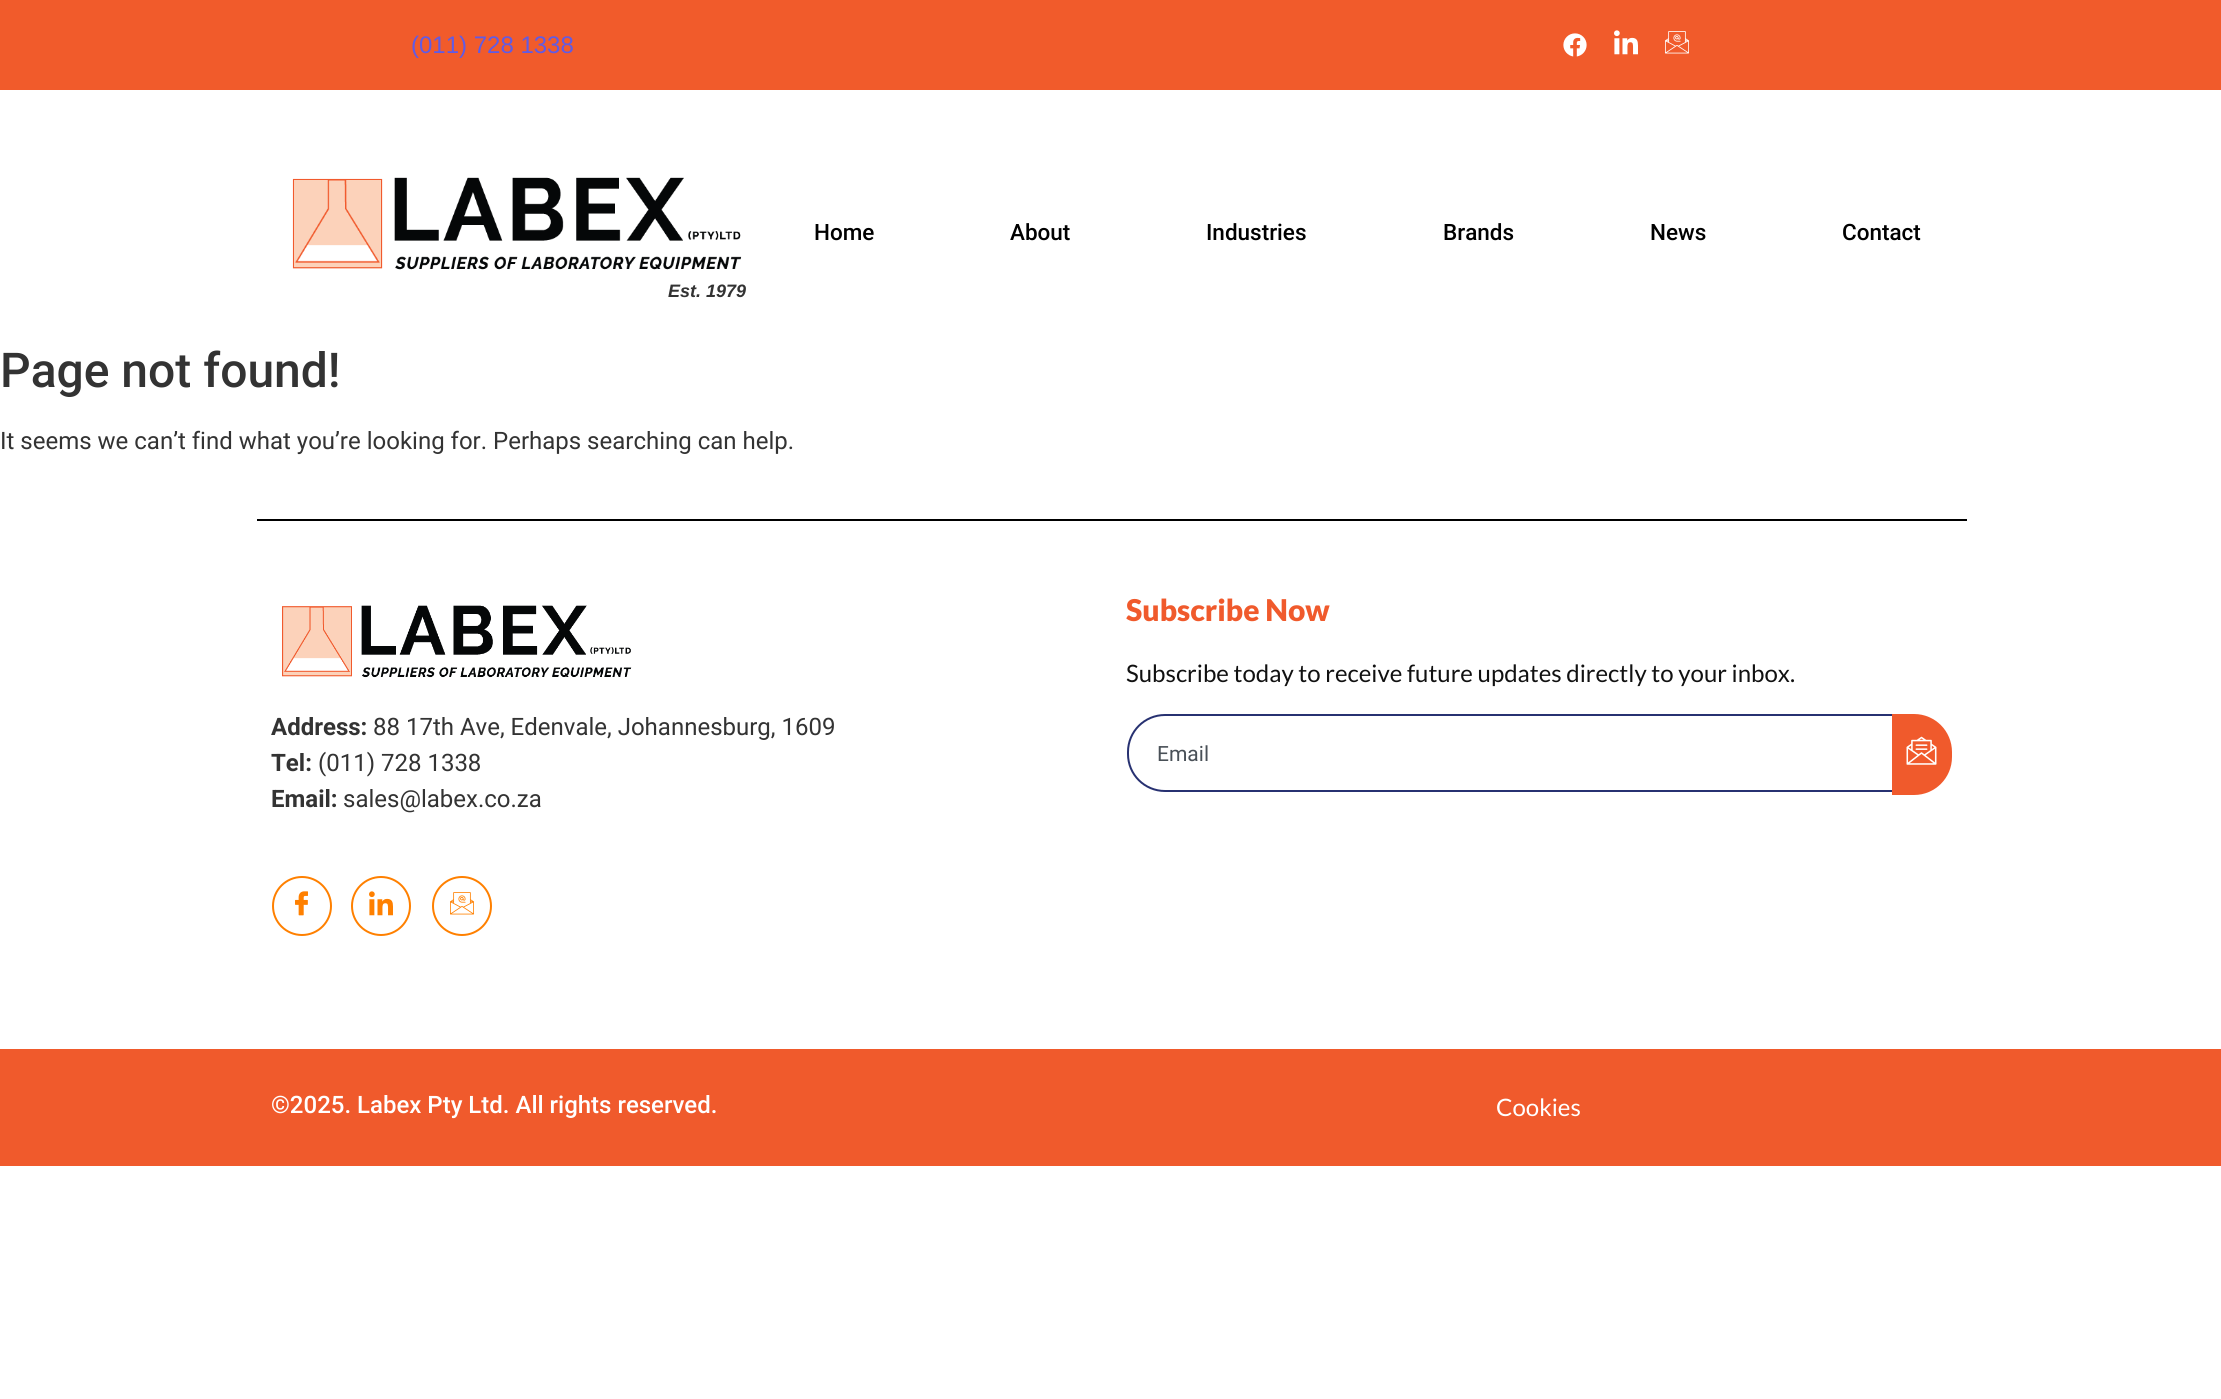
import math
import cairo

surface = cairo.ImageSurface(cairo.FORMAT_RGB24, 2221, 1399)
c = cairo.Context(surface)
options = cairo.FontOptions()
options.set_hint_metrics(cairo.HINT_METRICS_OFF)
options.set_hint_style(cairo.HINT_STYLE_NONE)
c.set_font_options(options)
c.set_miter_limit(4)
def C(code):
 c.set_source_rgb(*(v / 255 for v in bytes.fromhex(code[-6:])))
def F(family, size, italic, bold):
 c.select_font_face(family, cairo.FONT_SLANT_ITALIC if italic else cairo.FONT_SLANT_NORMAL, cairo.FONT_WEIGHT_BOLD if bold else cairo.FONT_WEIGHT_NORMAL)
 c.set_font_size(size)
def T(x, y, s):
 c.move_to(x, y)
 c.show_text(s)
def R(x, y, w, h):
 c.rectangle(x, y, w, h)
 c.fill()
def I(path, x, y, w, h):
 c.save()
 c.set_source_surface(cairo.ImageSurface.create_from_png(path), x, y)
 c.rectangle(x, y, w, h)
 c.fill()
 c.restore()
C('ffffff')
c.paint()
C('f15b2b')
R(0,0,2221,90)
F('Liberation Sans',24,0,0)
C('605be5')
T(411,53,'(011) 728 1338')
I('1.png',1563,33,24,24)
I('2.png',1614,30,24,25)
I('3.png',1665,31,24,23)
F('Roboto Medium',22.5,0,0)
C('000000')
T(814,240,'Home')
T(1010,240,'About')
T(1206,240,'Industries')
T(1443,240,'Brands')
T(1650,240,'News')
T(1842,240,'Contact')
I('4.png',292,177,450,93)
F('Liberation Sans',18,1,1)
C('333333')
T(668,297,'Est. 1979')
F('Roboto Medium',48,0,0)
T(0,387,'Page not found!')
F('Roboto',24,0,0)
T(0,449,'It seems we can’t find what you’re looking for. Perhaps searching can help.')
C('000000')
R(257,519,1710,2)
I('5.png',282,605,350,73)
F('Roboto',24,0,1)
C('333333')
T(271,735,'Address:')
F('Roboto',24,0,0)
T(373,735,'88 17th Ave, Edenvale, Johannesburg, 1609')
F('Roboto',24,0,1)
T(271,771,'Tel:')
F('Roboto',24,0,0)
T(318,771,'(011) 728 1338')
F('Roboto',24,0,1)
T(271,807,'Email:')
F('Roboto',24,0,0)
T(343,807,'sales@labex.co.za')
c.new_path()
c.arc(302,906,29,0,2 * math.pi)
C('ff8000')
c.stroke()
I('6.png',295,891,13,25)
c.arc(381,906,29,0,2 * math.pi)
c.stroke()
I('7.png',369,891,24,25)
c.arc(462,906,29,0,2 * math.pi)
c.stroke()
I('8.png',450,892,24,23)
F('Lato Black',30,0,0)
C('f05a2c')
T(1126,621,'Subscribe Now')
F('Lato',24,0,0)
C('111111')
T(1126,682,'Subscribe today to receive future updates directly to your inbox.')
c.new_path()
c.move_to(1165,715)
c.line_to(1894,715)
c.line_to(1894,791)
c.line_to(1165,791)
c.curve_to(1144.5,791,1128,774.5,1128,754)
c.line_to(1128,752)
c.curve_to(1128,731.5,1144.5,715,1165,715)
c.close_path()
C('273171')
c.stroke()
F('Roboto',21,0,0)
C('495057')
T(1157,761,'Email')
C('f05a2c')
c.new_path()
c.move_to(1892,714)
c.line_to(1914,714)
c.curve_to(1935,714,1952,731,1952,752)
c.line_to(1952,757)
c.curve_to(1952,778,1935,795,1914,795)
c.line_to(1892,795)
c.close_path()
c.fill()
I('9.png',1906,736,31,29)
R(0,1049,2221,117)
F('Roboto Medium',24,0,0)
C('ffffff')
T(271,1113,'©2025. Labex Pty Ltd. All rights reserved.')
F('Lato',24,0,0)
T(1496,1116,'Cookies')
surface.write_to_png('o.png')
